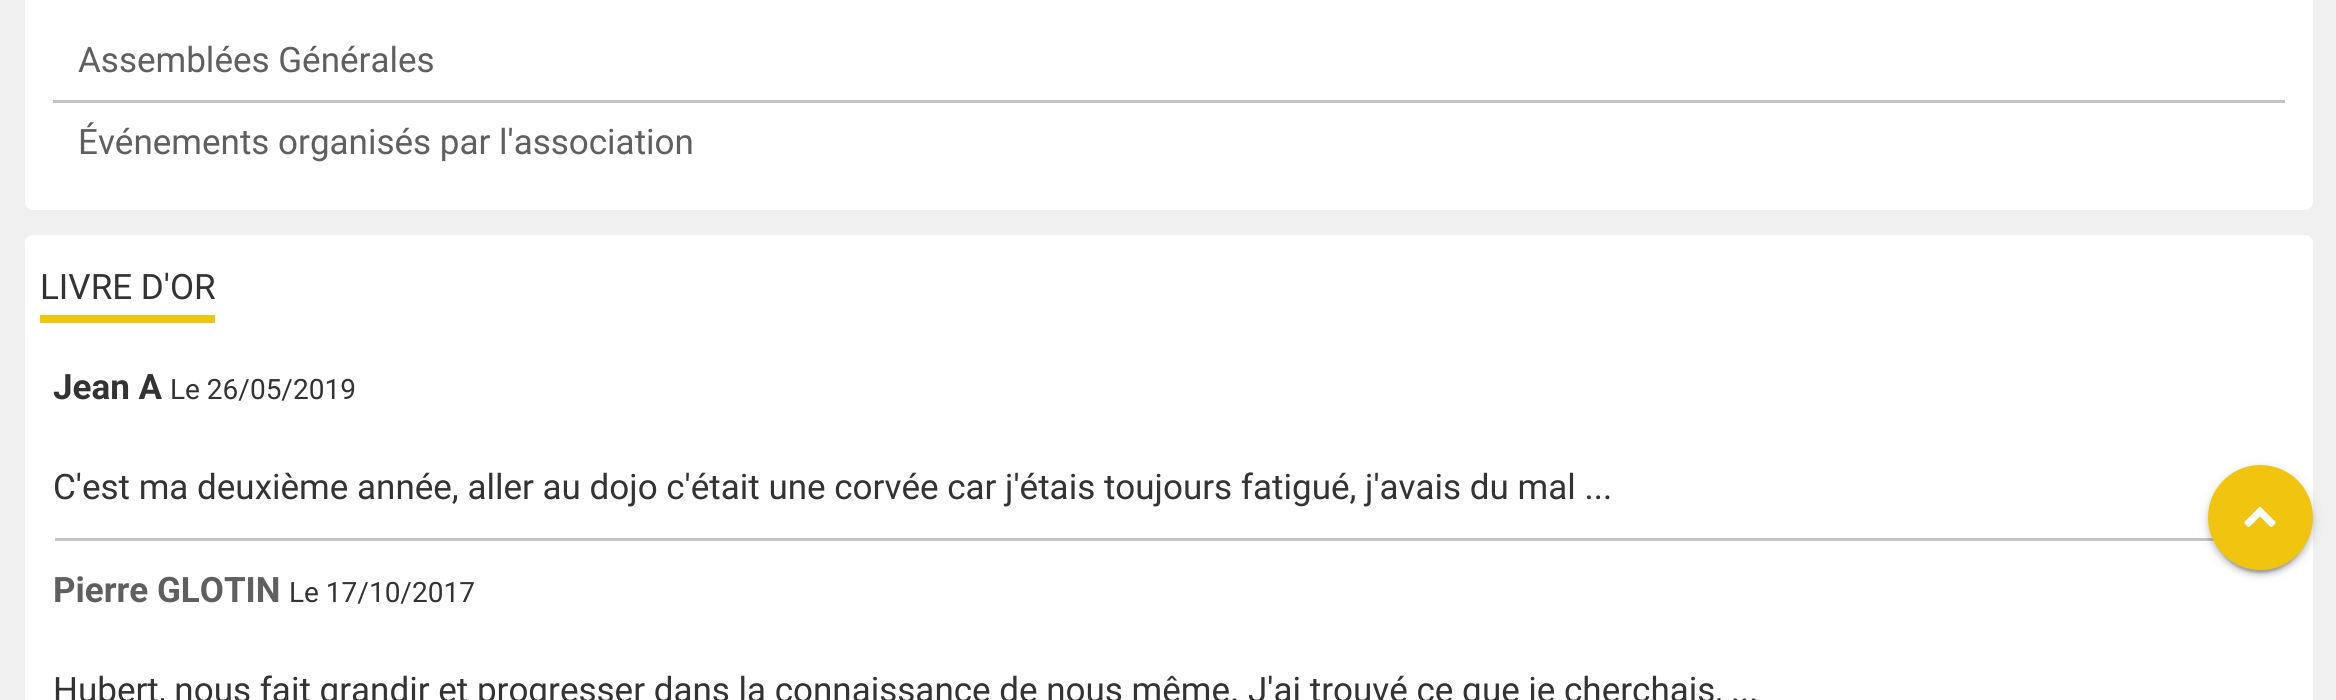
import math
import cairo

surface = cairo.ImageSurface(cairo.FORMAT_RGB24, 2336, 700)
c = cairo.Context(surface)
options = cairo.FontOptions()
options.set_hint_metrics(cairo.HINT_METRICS_OFF)
options.set_hint_style(cairo.HINT_STYLE_NONE)
c.set_font_options(options)
c.set_miter_limit(4)
def C(code):
 c.set_source_rgb(*(v / 255 for v in bytes.fromhex(code[-6:])))
def F(family, size, italic, bold):
 c.select_font_face(family, cairo.FONT_SLANT_ITALIC if italic else cairo.FONT_SLANT_NORMAL, cairo.FONT_WEIGHT_BOLD if bold else cairo.FONT_WEIGHT_NORMAL)
 c.set_font_size(size)
def T(x, y, s):
 c.move_to(x, y)
 c.show_text(s)
def R(x, y, w, h):
 c.rectangle(x, y, w, h)
 c.fill()
def Q(x, y, w, h, r):
 c.new_sub_path()
 for i, (u, v) in enumerate([(x + w - r, y + h - r), (x + r, y + h - r), (x + r, y + r), (x + w - r, y + r)]):
  c.arc(u, v, r, i * math.pi / 2, (i + 1) * math.pi / 2)
 c.close_path()
def S(x, y, w, h, r, blur, alpha):
 c.push_group_with_content(cairo.CONTENT_ALPHA)
 c.set_operator(cairo.OPERATOR_SOURCE)
 for i in range(15, -16, -2):
  e = blur * i / 6
  if min(w, h) + 2 * e > 0:
   c.set_source_rgba(0, 0, 0, alpha * math.erfc((i - 1) / 8.5) / 2)
   Q(x - e, y - e, w + 2 * e, h + 2 * e, max(0, min(r + e + blur * .6, min(w, h) / 2 + e)))
   c.fill()
 c.mask(c.pop_group())
def I(path, x, y, w, h):
 c.save()
 c.set_source_surface(cairo.ImageSurface.create_from_png(path), x, y)
 c.rectangle(x, y, w, h)
 c.fill()
 c.restore()
C('f0f0f0')
c.paint()
C('ffffff')
Q(26.5,-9.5,2285,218,6.5)
c.fill_preserve()
c.set_line_width(3)
c.stroke()
C('c4c4c4')
R(53,100,2232,3)
F('Roboto',35,0,0)
C('5f5f5f')
T(78,72,'Assemblées Générales')
T(78,154,'Événements organisés par l\'association')
C('ffffff')
Q(26.5,236.5,2285,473,6.5)
c.fill_preserve()
c.stroke()
C('333333')
T(40,299,'LIVRE D\'OR')
C('f1c40f')
R(40,315,175,8)
C('c4c4c4')
R(55,538,2159,3)
F('Roboto',35,0,1)
C('333333')
T(53,399,'Jean A')
F('Roboto',28,0,0)
T(170,399,'Le 26/05/2019')
F('Roboto',35,0,0)
T(53,499,'C\'est ma deuxième année, aller au dojo c\'était une corvée car j\'étais toujours fatigué, j\'avais du mal ...')
F('Roboto',35,0,1)
C('5f5f5f')
T(53,602,'Pierre GLOTIN')
F('Roboto',28,0,0)
C('333333')
T(289,602,'Le 17/10/2017')
F('Roboto',35,0,0)
T(53,702,'Hubert, nous fait grandir et progresser dans la connaissance de nous même. J\'ai trouvé ce que je cherchais, ...')
C('000000')
S(2208,468,105,105,52.5,6,.12)
S(2213,478,95,95,47.5,1,.2)
S(2208,470,105,105,52.5,2.5,.14)
C('f1c40f')
c.arc(2260.5,517.5,52.5,0,2 * math.pi)
c.fill()
I('1.png',2244,506,32,22)
surface.write_to_png('o.png')
